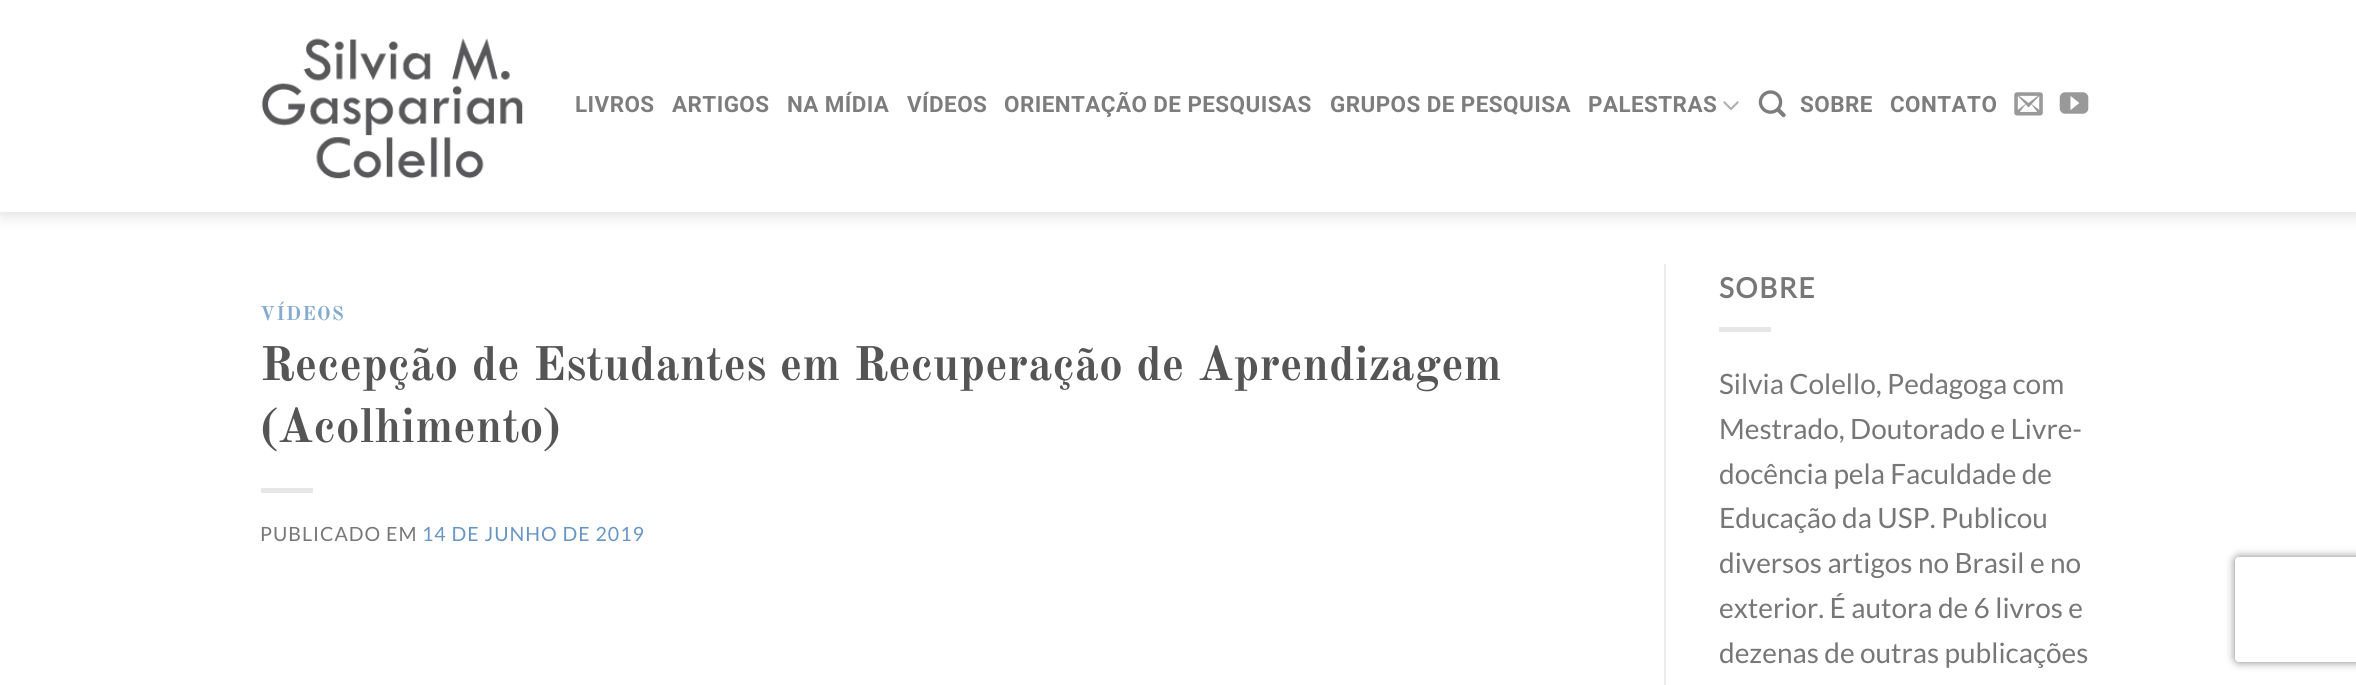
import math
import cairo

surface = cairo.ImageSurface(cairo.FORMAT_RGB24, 2356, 685)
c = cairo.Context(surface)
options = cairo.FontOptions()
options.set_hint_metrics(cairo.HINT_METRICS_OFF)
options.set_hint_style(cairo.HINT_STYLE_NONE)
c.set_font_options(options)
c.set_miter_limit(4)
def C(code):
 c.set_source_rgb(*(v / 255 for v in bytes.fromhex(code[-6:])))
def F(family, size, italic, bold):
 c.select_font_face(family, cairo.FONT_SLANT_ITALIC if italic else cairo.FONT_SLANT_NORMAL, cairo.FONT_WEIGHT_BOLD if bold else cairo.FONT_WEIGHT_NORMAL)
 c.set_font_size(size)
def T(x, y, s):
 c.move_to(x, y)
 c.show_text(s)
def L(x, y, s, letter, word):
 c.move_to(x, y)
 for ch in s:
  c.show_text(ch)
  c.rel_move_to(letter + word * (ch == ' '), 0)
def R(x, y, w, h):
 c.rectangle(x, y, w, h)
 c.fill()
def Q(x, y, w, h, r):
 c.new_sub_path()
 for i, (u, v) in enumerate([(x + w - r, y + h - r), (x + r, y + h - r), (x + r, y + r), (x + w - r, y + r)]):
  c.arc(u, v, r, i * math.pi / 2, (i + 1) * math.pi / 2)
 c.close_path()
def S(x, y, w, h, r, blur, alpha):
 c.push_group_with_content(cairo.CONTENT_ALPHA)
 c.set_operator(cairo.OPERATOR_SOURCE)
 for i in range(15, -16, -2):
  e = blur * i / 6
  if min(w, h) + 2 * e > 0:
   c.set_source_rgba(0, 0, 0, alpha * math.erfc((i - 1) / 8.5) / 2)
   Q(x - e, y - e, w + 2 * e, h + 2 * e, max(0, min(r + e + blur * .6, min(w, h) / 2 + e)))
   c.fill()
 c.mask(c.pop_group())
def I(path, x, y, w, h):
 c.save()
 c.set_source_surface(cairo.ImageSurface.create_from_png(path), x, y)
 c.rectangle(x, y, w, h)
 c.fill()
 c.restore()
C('ffffff')
c.paint()
c.save()
c.set_fill_rule(cairo.FILL_RULE_EVEN_ODD)
c.new_path()
c.move_to(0,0)
c.line_to(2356,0)
c.line_to(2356,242)
c.line_to(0,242)
c.close_path()
c.move_to(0,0)
c.line_to(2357,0)
c.line_to(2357,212)
c.line_to(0,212)
c.close_path()
c.clip()
C('000000')
S(2,2,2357,212,0,9,.15)
c.restore()
I('1.png',261,38,262,141)
F('Roboto',22.4,0,1)
C('7d7d7d')
L(575,112,'LIVROS',.45,0)
L(672,112,'ARTIGOS',.45,0)
L(787,112,'NA MÍDIA',.45,0)
L(907,112,'VÍDEOS',.45,0)
L(1004,112,'ORIENTAÇÃO DE PESQUISAS',.45,0)
L(1330,112,'GRUPOS DE PESQUISA',.45,0)
L(1588,112,'PALESTRAS',.45,0)
I('2.png',1723,101,16,10)
I('3.png',1758,90,28,28)
L(1800,112,'SOBRE',.45,0)
L(1890,112,'CONTATO',.45,0)
I('4.png',2014,92,29,24)
I('5.png',2059,92,30,22)
c.set_source_rgba(1,1,1,0.9)
R(2,211,2354,1)
F('Old Standard TT',19.6,0,1)
C('85abd1')
L(260,320,'VÍDEOS',1,0)
F('Old Standard TT',47.6,0,1)
C('555555')
T(260,380,'Recepção de Estudantes em Recuperação de Aprendizagem')
T(260,442,'(Acolhimento)')
C('e6e6e6')
R(261,488,52,5)
F('Lato',19.6,0,0)
C('777777')
L(260,541,'PUBLICADO EM',1,0)
C('6796c5')
L(422,541,'14 DE JUNHO DE 2019',1,0)
C('ececec')
R(1664,264,2,421)
F('Lato',28,0,1)
C('777777')
L(1719,298,'SOBRE',1.5,0)
C('e6e6e6')
R(1719,327,52,5)
F('Lato',28,0,0)
C('777777')
T(1719,394,'Silvia Colello, Pedagoga com')
T(1719,439,'Mestrado, Doutorado e Livre-')
T(1719,484,'docência pela Faculdade de')
T(1719,528,'Educação da USP. Publicou')
T(1719,573,'diversos artigos no Brasil e no')
T(1719,618,'exterior. É autora de 6 livros e')
T(1719,663,'dezenas de outras publicações')
c.save()
c.set_fill_rule(cairo.FILL_RULE_EVEN_ODD)
c.new_path()
c.move_to(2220,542)
c.line_to(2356,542)
c.line_to(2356,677)
c.line_to(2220,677)
c.close_path()
c.move_to(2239,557)
c.line_to(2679,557)
c.curve_to(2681,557,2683,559,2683,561)
c.line_to(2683,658)
c.curve_to(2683,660,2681,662,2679,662)
c.line_to(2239,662)
c.curve_to(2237,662,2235,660,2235,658)
c.line_to(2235,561)
c.curve_to(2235,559,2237,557,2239,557)
c.close_path()
c.clip()
C('808080')
S(2235,557,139,105,4,4.5,1)
c.restore()
surface.write_to_png('o.png')
